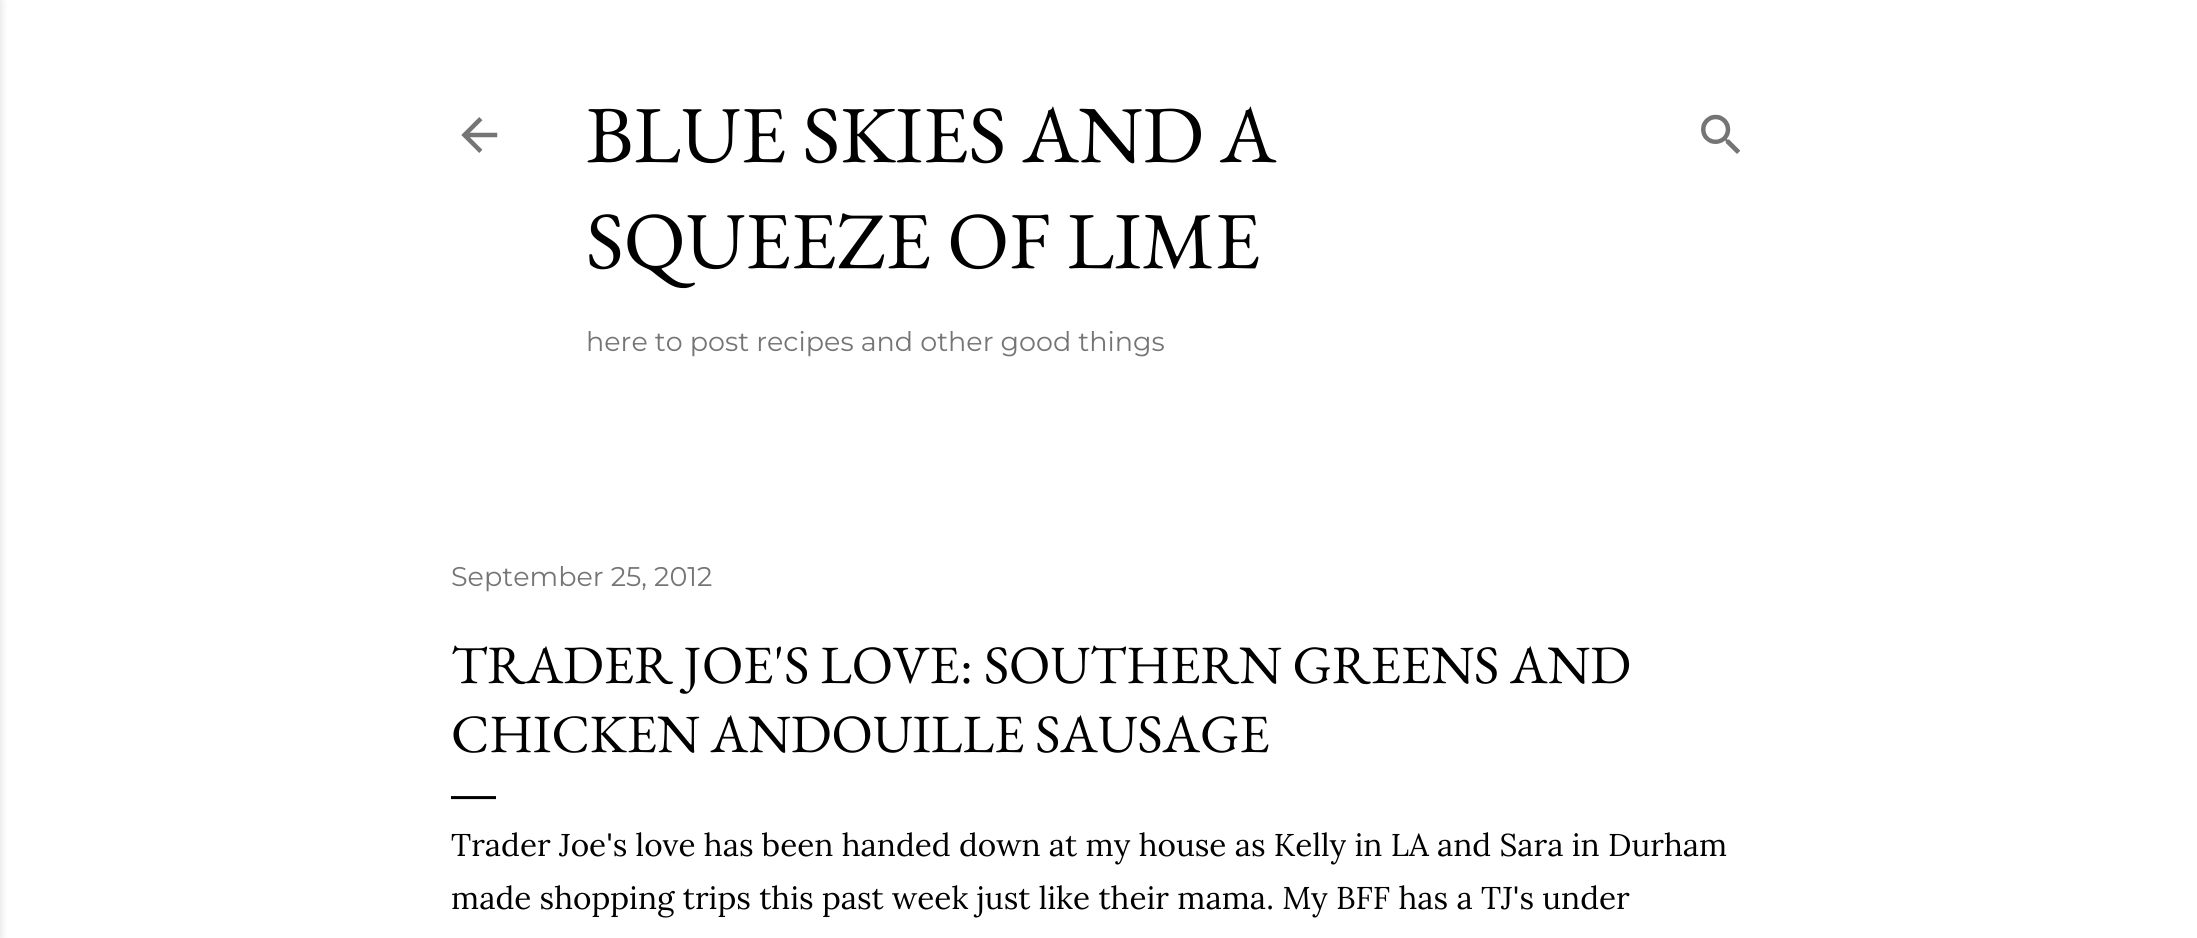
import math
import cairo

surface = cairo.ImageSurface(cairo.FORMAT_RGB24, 2197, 938)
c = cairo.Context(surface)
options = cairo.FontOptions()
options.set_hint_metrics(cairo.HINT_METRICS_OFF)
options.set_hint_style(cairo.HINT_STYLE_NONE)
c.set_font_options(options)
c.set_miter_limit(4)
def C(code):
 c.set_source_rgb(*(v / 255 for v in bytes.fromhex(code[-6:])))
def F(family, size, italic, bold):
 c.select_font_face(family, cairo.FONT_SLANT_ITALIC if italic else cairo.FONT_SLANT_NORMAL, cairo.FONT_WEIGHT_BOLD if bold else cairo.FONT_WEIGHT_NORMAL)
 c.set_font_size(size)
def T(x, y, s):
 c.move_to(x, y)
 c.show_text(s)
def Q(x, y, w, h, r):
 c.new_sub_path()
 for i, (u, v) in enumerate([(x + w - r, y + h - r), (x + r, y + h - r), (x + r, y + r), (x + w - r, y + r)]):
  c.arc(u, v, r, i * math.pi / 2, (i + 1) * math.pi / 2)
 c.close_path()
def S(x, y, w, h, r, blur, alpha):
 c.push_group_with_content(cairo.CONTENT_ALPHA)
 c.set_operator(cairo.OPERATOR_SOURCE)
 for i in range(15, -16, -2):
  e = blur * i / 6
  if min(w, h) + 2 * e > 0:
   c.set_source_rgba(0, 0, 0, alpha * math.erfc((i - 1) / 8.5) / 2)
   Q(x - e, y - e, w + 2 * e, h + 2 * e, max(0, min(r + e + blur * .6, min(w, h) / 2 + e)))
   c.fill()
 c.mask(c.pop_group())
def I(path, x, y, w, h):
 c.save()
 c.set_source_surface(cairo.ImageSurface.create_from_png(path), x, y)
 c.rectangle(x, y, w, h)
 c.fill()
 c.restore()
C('ffffff')
c.paint()
C('000000')
S(-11,0,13,938,0,3.5,.1)
I('1.png',461,117,37,36)
F('EB Garamond',81,0,0)
C('000000')
T(586,162,'BLUE SKIES AND A')
T(586,268,'SQUEEZE OF LIME')
F('Montserrat Thin',27,0,0)
C('757575')
T(586,351,'here to post recipes and other good things')
I('2.png',1701,114,40,40)
T(451,586,'September 25, 2012')
F('EB Garamond',54,0,0)
C('000000')
T(451,683,'TRADER JOE\'S LOVE: SOUTHERN GREENS AND')
T(451,752,'CHICKEN ANDOUILLE SAUSAGE')
F('Liberation Sans',45,0,0)
T(451,809,'—')
F('Lora',31.5,0,0)
T(451,856,'Trader Joe\'s love has been handed down at my house as Kelly in LA and Sara in Durham')
T(451,909,'made shopping trips this past week just like their mama. My BFF has a TJ\'s under')
surface.write_to_png('o.png')
